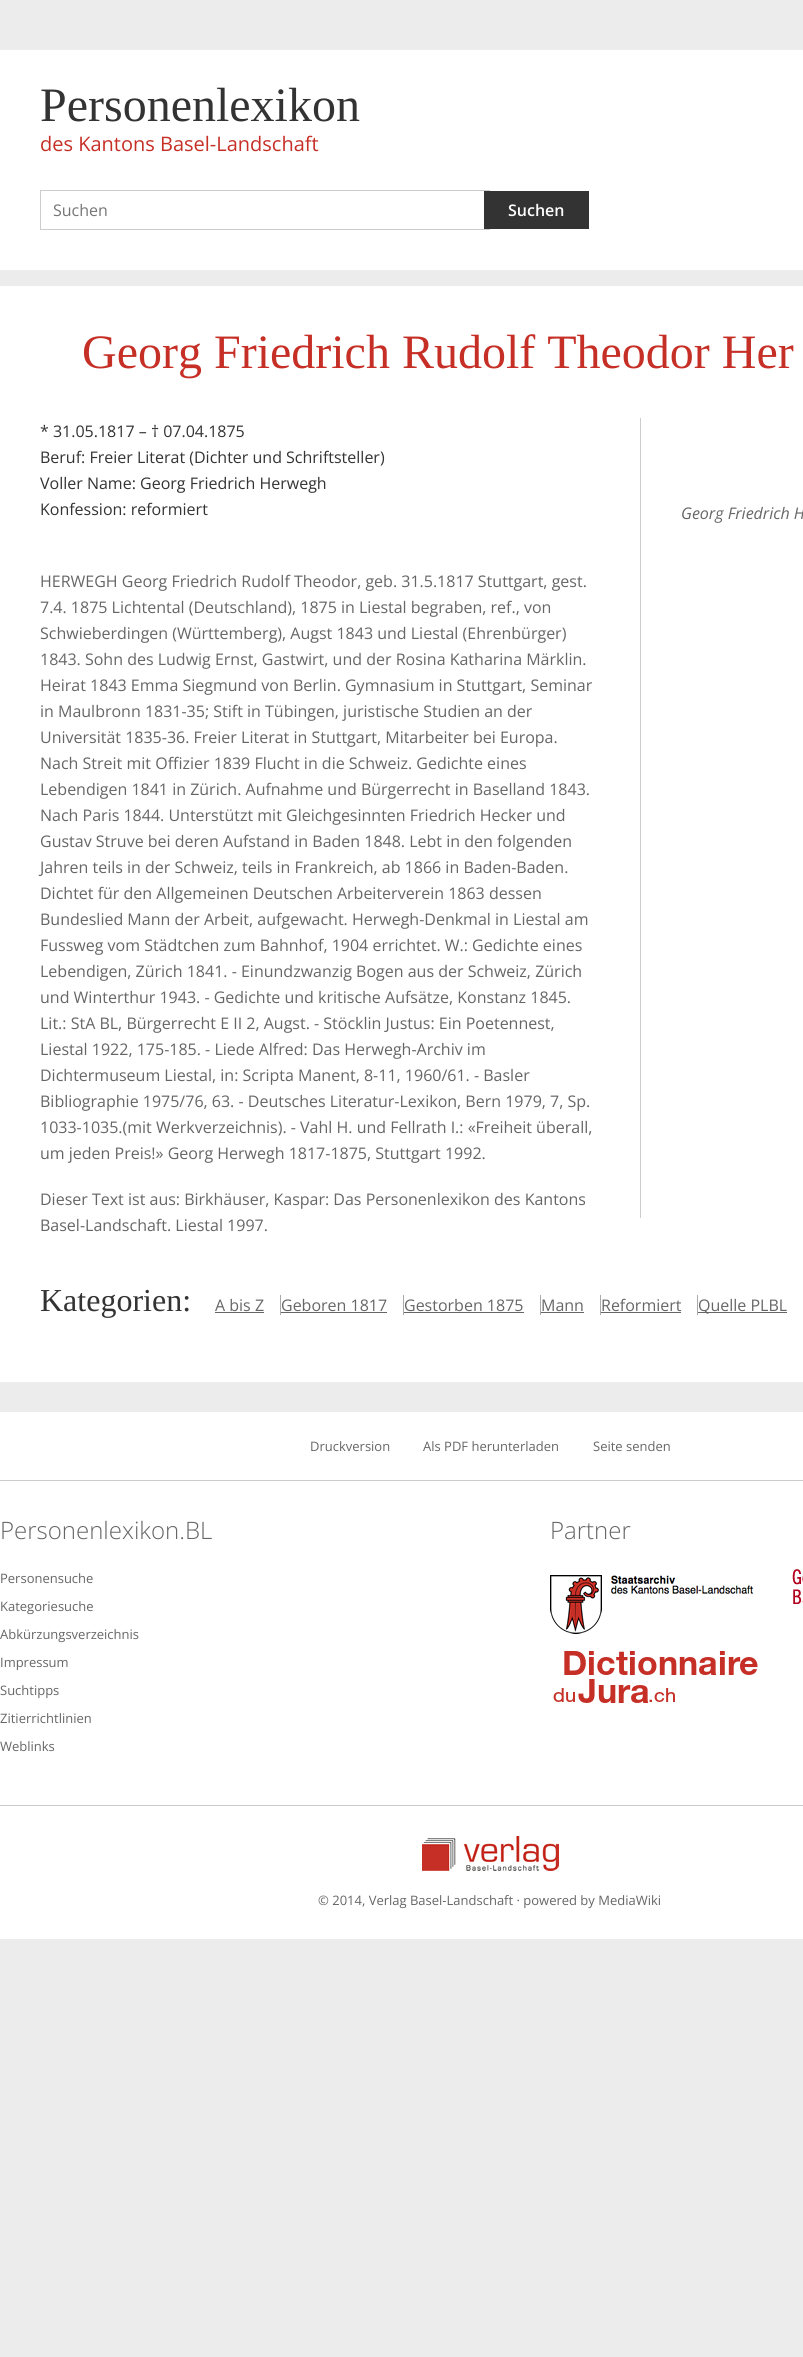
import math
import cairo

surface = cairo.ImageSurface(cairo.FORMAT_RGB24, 803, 2357)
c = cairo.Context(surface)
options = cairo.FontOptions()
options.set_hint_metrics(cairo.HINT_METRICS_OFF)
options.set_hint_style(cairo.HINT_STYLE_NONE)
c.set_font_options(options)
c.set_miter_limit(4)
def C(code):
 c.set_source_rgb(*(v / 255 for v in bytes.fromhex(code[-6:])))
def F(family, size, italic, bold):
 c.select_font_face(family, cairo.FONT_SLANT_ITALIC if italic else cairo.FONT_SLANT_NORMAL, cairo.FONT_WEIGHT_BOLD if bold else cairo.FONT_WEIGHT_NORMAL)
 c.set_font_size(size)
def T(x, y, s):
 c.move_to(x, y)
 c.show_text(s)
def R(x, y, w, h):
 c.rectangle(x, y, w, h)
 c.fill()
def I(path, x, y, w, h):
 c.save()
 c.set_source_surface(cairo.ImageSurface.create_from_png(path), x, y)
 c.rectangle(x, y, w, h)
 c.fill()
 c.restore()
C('ececec')
c.paint()
C('ffffff')
R(0,50,803,220)
F('Liberation Serif',48,0,0)
C('333333')
T(40,121,'Personenlexikon')
F('Open Sans',20,0,0)
C('c62f26')
T(40,151,'des Kantons Basel-Landschaft')
c.rectangle(40.5,190.5,449,39)
C('cccccc')
c.set_line_width(1)
c.stroke()
F('Open Sans',16,0,0)
C('757575')
T(53,216,'Suchen')
C('333333')
R(484,191,105,38)
F('Open Sans SemiBold',16,0,0)
C('ffffff')
T(508,216,'Suchen')
R(0,286,803,1096)
F('Liberation Serif',48,0,0)
C('c62f26')
T(82,368,'Georg Friedrich Rudolf Theodor Her')
F('Open Sans',16,0,0)
C('333333')
T(40,437,'* 31.05.1817 – † 07.04.1875')
T(40,463,'Beruf: Freier Literat (Dichter und Schriftsteller)')
T(40,489,'Voller Name: Georg Friedrich Herwegh')
T(40,515,'Konfession: reformiert')
C('cccccc')
R(640,418,1,800)
F('Open Sans',16,1,0)
C('666666')
T(681,519,'Georg Friedrich H')
F('Open Sans',16,0,0)
T(40,587,'HERWEGH Georg Friedrich Rudolf Theodor, geb. 31.5.1817 Stuttgart, gest.')
T(40,613,'7.4. 1875 Lichtental (Deutschland), 1875 in Liestal begraben, ref., von')
T(40,639,'Schwieberdingen (Württemberg), Augst 1843 und Liestal (Ehrenbürger)')
T(40,665,'1843. Sohn des Ludwig Ernst, Gastwirt, und der Rosina Katharina Märklin.')
T(40,691,'Heirat 1843 Emma Siegmund von Berlin. Gymnasium in Stuttgart, Seminar')
T(40,717,'in Maulbronn 1831-35; Stift in Tübingen, juristische Studien an der')
T(40,743,'Universität 1835-36. Freier Literat in Stuttgart, Mitarbeiter bei Europa.')
T(40,769,'Nach Streit mit Offizier 1839 Flucht in die Schweiz. Gedichte eines')
T(40,795,'Lebendigen 1841 in Zürich. Aufnahme und Bürgerrecht in Baselland 1843.')
T(40,821,'Nach Paris 1844. Unterstützt mit Gleichgesinnten Friedrich Hecker und')
T(40,847,'Gustav Struve bei deren Aufstand in Baden 1848. Lebt in den folgenden')
T(40,873,'Jahren teils in der Schweiz, teils in Frankreich, ab 1866 in Baden-Baden.')
T(40,899,'Dichtet für den Allgemeinen Deutschen Arbeiterverein 1863 dessen')
T(40,925,'Bundeslied Mann der Arbeit, aufgewacht. Herwegh-Denkmal in Liestal am')
T(40,951,'Fussweg vom Städtchen zum Bahnhof, 1904 errichtet. W.: Gedichte eines')
T(40,977,'Lebendigen, Zürich 1841. - Einundzwanzig Bogen aus der Schweiz, Zürich')
T(40,1003,'und Winterthur 1943. - Gedichte und kritische Aufsätze, Konstanz 1845.')
T(40,1029,'Lit.: StA BL, Bürgerrecht E II 2, Augst. - Stöcklin Justus: Ein Poetennest,')
T(40,1055,'Liestal 1922, 175-185. - Liede Alfred: Das Herwegh-Archiv im')
T(40,1081,'Dichtermuseum Liestal, in: Scripta Manent, 8-11, 1960/61. - Basler')
T(40,1107,'Bibliographie 1975/76, 63. - Deutsches Literatur-Lexikon, Bern 1979, 7, Sp.')
T(40,1133,'1033-1035.(mit Werkverzeichnis). - Vahl H. und Fellrath I.: «Freiheit überall,')
T(40,1159,'um jeden Preis!» Georg Herwegh 1817-1875, Stuttgart 1992.')
T(40,1205,'Dieser Text ist aus: Birkhäuser, Kaspar: Das Personenlexikon des Kantons')
T(40,1231,'Basel-Landschaft. Liestal 1997.')
F('Liberation Serif',32,0,0)
C('333333')
T(40,1311,'Kategorien:')
F('Open Sans',16,0,0)
C('666666')
T(215,1311,'A bis Z')
R(215,1312,49,1)
C('aaaaaa')
R(280,1295,1,20)
C('666666')
T(281,1311,'Geboren 1817')
R(281,1312,106,1)
C('aaaaaa')
R(403,1295,1,20)
C('666666')
T(404,1311,'Gestorben 1875')
R(404,1312,120,1)
C('aaaaaa')
R(540,1295,1,20)
C('666666')
T(541,1311,'Mann')
R(541,1312,43,1)
C('aaaaaa')
R(600,1295,1,20)
C('666666')
T(601,1311,'Reformiert')
R(601,1312,80,1)
C('aaaaaa')
R(697,1295,1,20)
C('666666')
R(698,1312,89,1)
T(698,1311,'Quelle PLBL')
C('ffffff')
R(0,1412,803,527)
C('cccccc')
R(0,1480,803,1)
F('Open Sans',13,0,0)
C('666666')
T(310,1451,'Druckversion')
T(423,1451,'Als PDF herunterladen')
T(593,1451,'Seite senden')
F('Open Sans Light',24,0,0)
T(0,1539,'Personenlexikon.BL')
F('Open Sans',13,0,0)
T(0,1583,'Personensuche')
T(0,1611,'Kategoriesuche')
T(0,1639,'Abkürzungsverzeichnis')
T(0,1667,'Impressum')
T(0,1695,'Suchtipps')
T(0,1723,'Zitierrichtlinien')
T(0,1751,'Weblinks')
F('Open Sans Light',24,0,0)
T(550,1539,'Partner')
I('1.png',550,1575,204,59)
I('2.png',792,1569,11,35)
I('3.png',553,1651,205,52)
C('cccccc')
R(0,1805,803,1)
I('4.png',422,1836,137,35)
F('Open Sans',13,0,0)
C('666666')
T(318,1905,'© 2014, Verlag Basel-Landschaft · powered by MediaWiki')
surface.write_to_png('o.png')
